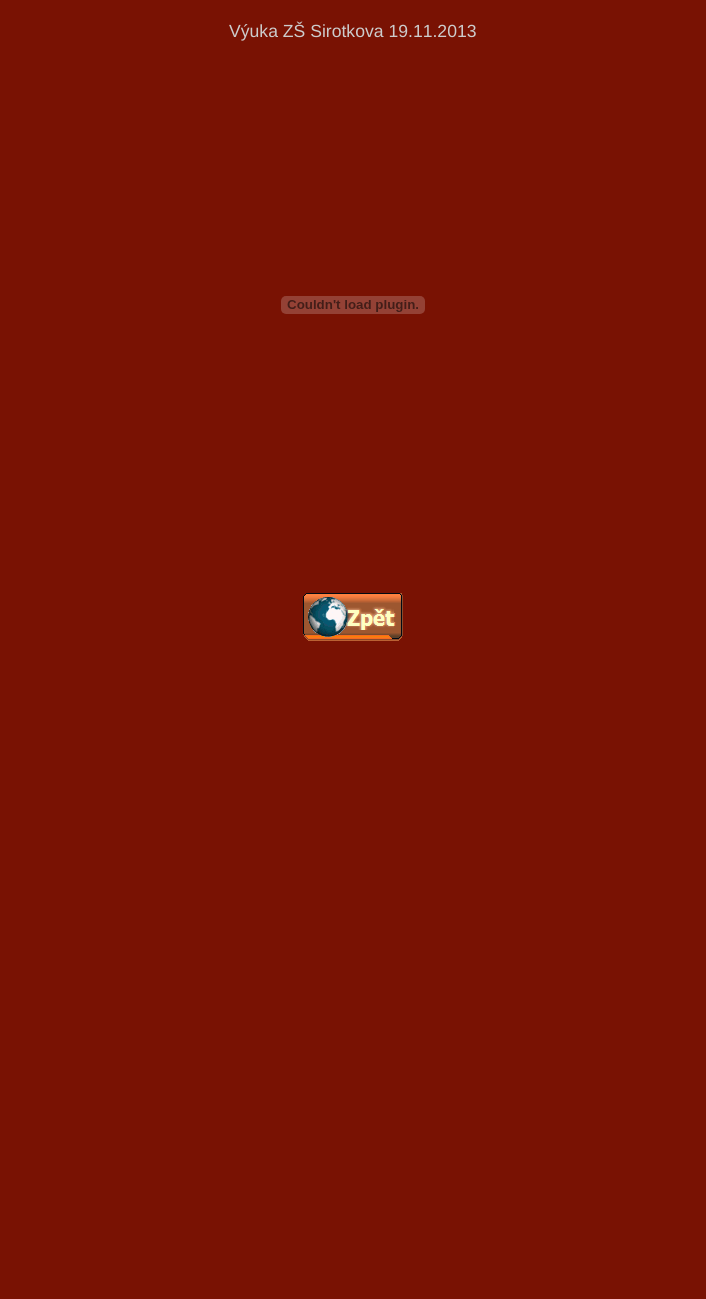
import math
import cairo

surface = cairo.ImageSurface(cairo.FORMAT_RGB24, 706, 1299)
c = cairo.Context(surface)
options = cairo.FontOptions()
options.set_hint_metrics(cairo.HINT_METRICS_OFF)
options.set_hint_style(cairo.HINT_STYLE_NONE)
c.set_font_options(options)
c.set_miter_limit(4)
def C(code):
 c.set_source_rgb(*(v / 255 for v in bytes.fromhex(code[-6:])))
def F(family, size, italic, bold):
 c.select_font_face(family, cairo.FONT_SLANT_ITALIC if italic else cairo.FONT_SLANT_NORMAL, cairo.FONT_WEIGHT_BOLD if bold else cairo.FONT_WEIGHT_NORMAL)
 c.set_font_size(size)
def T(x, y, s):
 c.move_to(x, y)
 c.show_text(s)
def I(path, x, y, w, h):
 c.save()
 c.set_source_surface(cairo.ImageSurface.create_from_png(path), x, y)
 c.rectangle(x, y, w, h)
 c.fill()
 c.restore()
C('791203')
c.paint()
F('Liberation Sans',17.6,0,0)
C('cccccc')
T(229,37,'Výuka ZŠ Sirotkova 19.11.2013')
I('1.png',281,296,144,18)
I('2.png',303,593,100,48)
surface.write_to_png('o.png')
